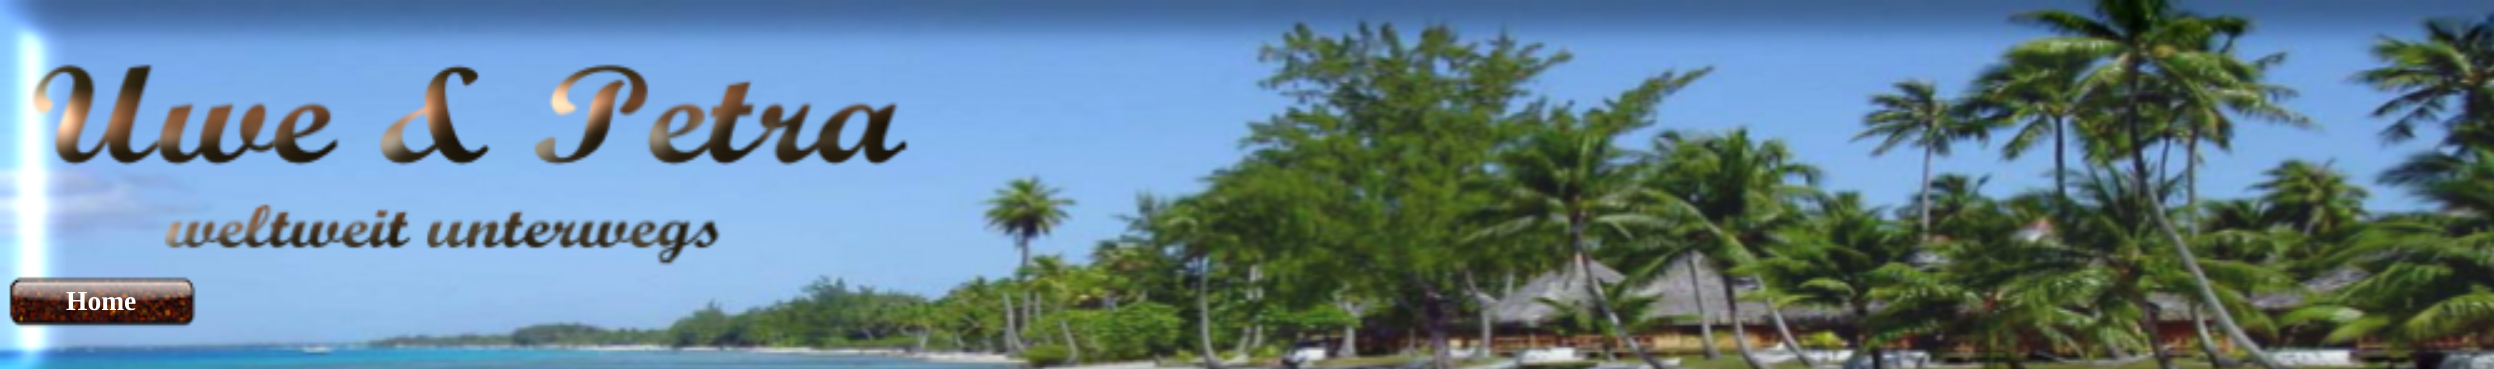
import math
import cairo

surface = cairo.ImageSurface(cairo.FORMAT_RGB24, 2494, 369)
c = cairo.Context(surface)
options = cairo.FontOptions()
options.set_hint_metrics(cairo.HINT_METRICS_OFF)
options.set_hint_style(cairo.HINT_STYLE_NONE)
c.set_font_options(options)
c.set_miter_limit(4)
def C(code):
 c.set_source_rgb(*(v / 255 for v in bytes.fromhex(code[-6:])))
def F(family, size, italic, bold):
 c.select_font_face(family, cairo.FONT_SLANT_ITALIC if italic else cairo.FONT_SLANT_NORMAL, cairo.FONT_WEIGHT_BOLD if bold else cairo.FONT_WEIGHT_NORMAL)
 c.set_font_size(size)
def T(x, y, s):
 c.move_to(x, y)
 c.show_text(s)
def I(path, x, y, w, h):
 c.save()
 c.set_source_surface(cairo.ImageSurface.create_from_png(path), x, y)
 c.rectangle(x, y, w, h)
 c.fill()
 c.restore()
C('ffffff')
c.paint()
I('1.png',0,0,2494,369)
I('2.png',9,276,187,52)
F('Liberation Serif',27.5,0,1)
C('ffffff')
T(66,310,'Home')
surface.write_to_png('o.png')
